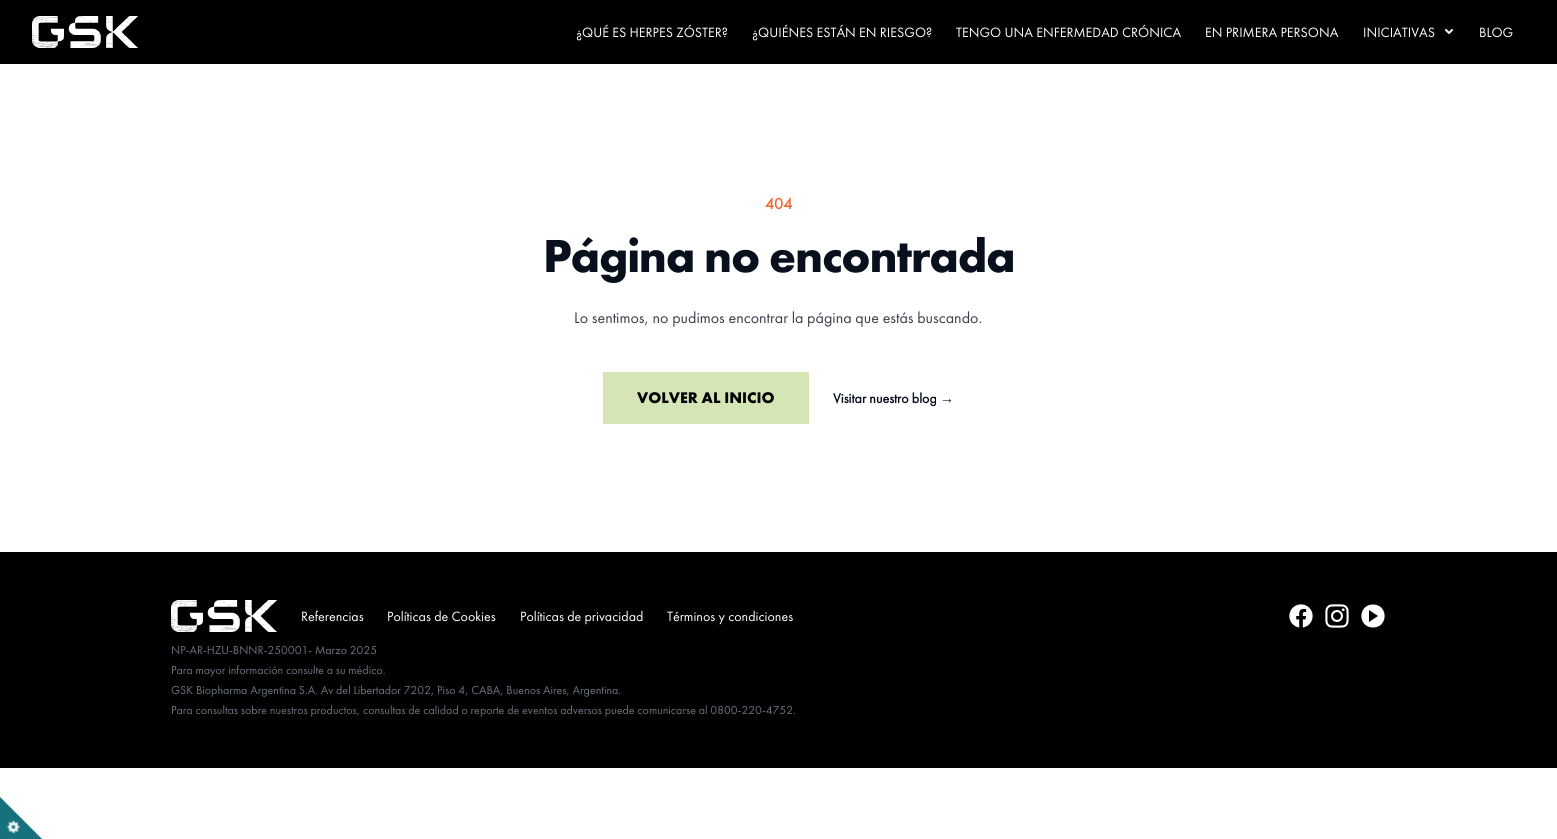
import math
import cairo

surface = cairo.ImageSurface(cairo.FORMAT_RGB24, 1557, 839)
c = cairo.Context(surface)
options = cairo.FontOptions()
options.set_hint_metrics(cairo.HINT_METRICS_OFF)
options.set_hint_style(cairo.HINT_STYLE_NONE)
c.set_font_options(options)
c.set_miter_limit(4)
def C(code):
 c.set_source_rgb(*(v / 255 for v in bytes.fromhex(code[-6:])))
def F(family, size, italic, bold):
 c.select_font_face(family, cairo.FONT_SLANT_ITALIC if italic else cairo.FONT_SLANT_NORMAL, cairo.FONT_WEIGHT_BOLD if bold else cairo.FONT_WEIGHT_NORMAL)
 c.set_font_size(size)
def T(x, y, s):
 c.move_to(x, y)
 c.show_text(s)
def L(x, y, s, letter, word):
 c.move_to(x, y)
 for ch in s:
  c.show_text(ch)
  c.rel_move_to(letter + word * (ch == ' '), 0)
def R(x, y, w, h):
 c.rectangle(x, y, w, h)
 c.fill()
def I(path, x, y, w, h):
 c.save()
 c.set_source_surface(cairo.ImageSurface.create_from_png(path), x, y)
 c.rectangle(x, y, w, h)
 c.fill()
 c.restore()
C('ffffff')
c.paint()
C('000000')
R(0,0,1557,64)
I('1.png',32,16,106,32)
F('Futura PT',14,0,0)
C('ffffff')
T(576,37,'¿QUÉ ES HERPES ZÓSTER?')
T(752,37,'¿QUIÉNES ESTÁN EN RIESGO?')
T(956,37,'TENGO UNA ENFERMEDAD CRÓNICA')
T(1205,37,'EN PRIMERA PERSONA')
T(1363,37,'INICIATIVAS')
I('2.png',1445,29,8,5)
T(1479,37,'BLOG')
F('Futura PT',16,0,1)
C('f36633')
T(765,209,'404')
F('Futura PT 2',48,0,1)
C('08101e')
L(543,272,'Página no encontrada',-1.2,0)
F('Futura PT',16,0,0)
C('39404b')
T(574,323,'Lo sentimos, no pudimos encontrar la página que estás buscando.')
C('d6e5b6')
R(603,372,206,52)
F('Futura PT 2',16,0,1)
C('000000')
T(637,403,'VOLVER AL INICIO')
F('Futura PT',14,0,1)
C('08101e')
T(833,403,'Visitar nuestro blog')
F('Liberation Serif',14,0,1)
T(940,403,'→')
C('000000')
R(0,552,1557,216)
I('3.png',171,600,106,32)
F('Futura PT',14,0,0)
C('ffffff')
T(301,621,'Referencias')
T(387,621,'Políticas de Cookies')
T(520,621,'Políticas de privacidad')
T(667,621,'Términos y condiciones')
I('4.png',1289,604,24,24)
I('5.png',1325,604,24,24)
c.set_fill_rule(cairo.FILL_RULE_EVEN_ODD)
c.new_path()
c.move_to(1373,604.5)
c.curve_to(1357.5,604.5,1357.5,627.5,1373,627.5)
c.curve_to(1388.5,627.5,1388.5,604.5,1373,604.5)
c.close_path()
c.move_to(1369,622)
c.line_to(1378,616)
c.line_to(1369,610)
c.close_path()
c.fill()
F('Futura PT',12,0,0)
C('6b7280')
T(171,654,'NP-AR-HZU-BNNR-250001- Marzo 2025')
T(171,674,'Para mayor información consulte a su médico.')
T(171,694,'GSK Biopharma Argentina S.A. Av del Libertador 7202, Piso 4, CABA, Buenos Aires, Argentina.')
T(171,714,'Para consultas sobre nuestros productos, consultas de calidad o reporte de eventos adversos puede comunicarse al 0800-220-4752.')
C('17717d')
c.set_fill_rule(cairo.FILL_RULE_WINDING)
c.new_path()
c.move_to(0,797)
c.line_to(42,839)
c.line_to(0,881)
c.line_to(-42,839)
c.close_path()
c.fill()
I('6.png',6,820,15,14)
surface.write_to_png('o.png')
